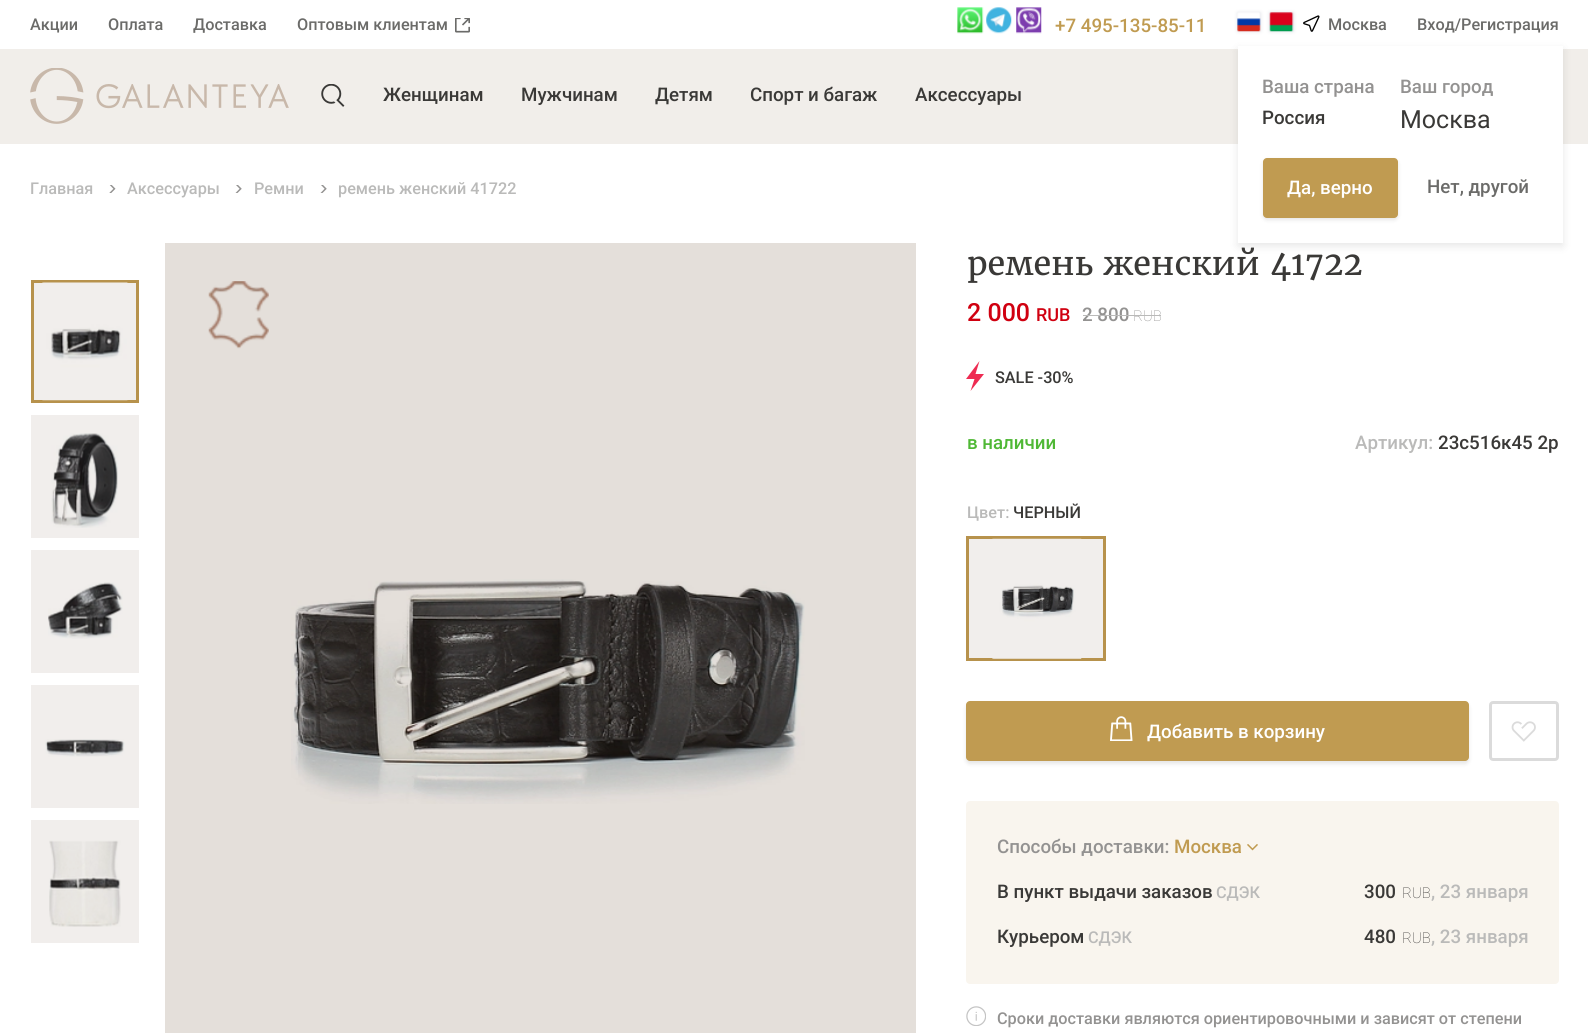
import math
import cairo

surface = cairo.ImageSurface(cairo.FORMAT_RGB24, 1588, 1033)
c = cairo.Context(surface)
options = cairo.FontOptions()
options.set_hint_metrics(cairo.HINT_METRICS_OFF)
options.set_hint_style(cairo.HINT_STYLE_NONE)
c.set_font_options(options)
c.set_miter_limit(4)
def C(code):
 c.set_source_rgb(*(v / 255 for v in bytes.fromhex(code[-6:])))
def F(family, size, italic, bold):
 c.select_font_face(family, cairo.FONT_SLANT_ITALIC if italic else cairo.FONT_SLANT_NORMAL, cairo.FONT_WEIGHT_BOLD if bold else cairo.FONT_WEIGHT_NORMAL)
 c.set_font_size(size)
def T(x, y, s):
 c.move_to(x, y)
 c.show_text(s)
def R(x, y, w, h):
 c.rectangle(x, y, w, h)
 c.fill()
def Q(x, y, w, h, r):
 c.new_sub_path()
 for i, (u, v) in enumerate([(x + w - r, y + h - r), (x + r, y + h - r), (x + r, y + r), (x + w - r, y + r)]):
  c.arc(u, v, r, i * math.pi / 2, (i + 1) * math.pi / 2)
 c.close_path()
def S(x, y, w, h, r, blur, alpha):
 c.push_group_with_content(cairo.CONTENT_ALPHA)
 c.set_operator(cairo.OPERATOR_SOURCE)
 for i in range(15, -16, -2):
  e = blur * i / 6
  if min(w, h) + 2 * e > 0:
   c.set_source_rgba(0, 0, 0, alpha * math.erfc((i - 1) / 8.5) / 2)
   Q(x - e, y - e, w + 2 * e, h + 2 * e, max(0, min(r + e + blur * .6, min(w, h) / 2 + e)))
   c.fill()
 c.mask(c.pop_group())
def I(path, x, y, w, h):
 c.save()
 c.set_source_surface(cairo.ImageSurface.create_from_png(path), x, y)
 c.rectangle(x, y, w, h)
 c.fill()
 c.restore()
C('ffffff')
c.paint()
C('e4dfda')
R(165,243,751,790)
C('f1eeec')
R(31,820,108,123)
R(31,685,108,123)
R(31,550,108,123)
R(31,415,108,123)
F('Roboto Medium',16.25,0,0)
C('6b6b69')
T(30,30,'Акции')
T(108,30,'Оплата')
T(193,30,'Доставка')
T(297,30,'Оптовым клиентам')
I('1.png',455,18,15,15)
I('2.png',957,7,27,27)
I('3.png',986,7,26,27)
I('4.png',1016,7,26,27)
F('Roboto Medium',18.75,0,0)
C('c09b51')
T(1055,32,'+7 495-135-85-11')
C('d5d7df')
S(1238,13,22,18,0,2,1)
I('5.png',1237,12,24,20)
S(1270,13,23,18,0,2,1)
I('6.png',1269,12,25,20)
I('7.png',1303,15,17,17)
F('Roboto Medium',16.25,0,0)
C('6b6b69')
T(1328,30,'Москва')
C('f1eeea')
R(0,49,1588,95)
C('000000')
S(1238,50,325,196,0,4.5,.1)
C('ffffff')
R(1238,46,325,197)
F('Roboto Medium',18.75,0,0)
C('939291')
T(1262,93,'Ваша страна')
C('3a3937')
T(1262,124,'Россия')
C('939291')
T(1400,93,'Ваш город')
F('Roboto',25,0,0)
C('3a3937')
T(1400,128,'Москва')
C('5b5a59')
S(1263,160,135,60,4,2,.15)
C('c09b51')
Q(1263,158,135,60,4)
c.fill()
F('Roboto Medium',18.75,0,0)
C('ffffff')
T(1287,194,'Да, верно')
C('6b6b69')
T(1427,193,'Нет, другой')
F('Roboto Medium',16.25,0,0)
T(1417,30,'Вход/Регистрация')
I('8.png',30,68,259,56)
I('9.png',321,84,24,23)
F('Roboto Medium',18.75,0,0)
C('3a3937')
T(383,101,'Женщинам')
T(521,101,'Мужчинам')
T(655,101,'Детям')
T(750,101,'Спорт и багаж')
T(915,101,'Аксессуары')
F('Roboto Medium',16.25,0,0)
C('babab9')
T(30,194,'Главная')
I('10.png',109,185,7,8)
T(127,194,'Аксессуары')
I('11.png',235,185,7,8)
T(254,194,'Ремни')
I('11.png',320,185,7,8)
T(338,194,'ремень женский 41722')
C('f1eeec')
c.rectangle(32.5,281.5,105,120)
c.fill_preserve()
C('b7924c')
c.set_line_width(3)
c.stroke()
I('12.png',42,282,87,119)
I('13.png',51,433,67,95)
I('14.png',48,582,75,57)
I('15.png',45,739,80,18)
I('16.png',49,840,72,87)
I('17.png',208,281,61,68)
I('18.png',291,579,514,225)
F('Merriweather',32.5,0,0)
C('3a3937')
T(967,275,'ремень женский 41722')
F('Roboto Medium',25,0,0)
C('d00010')
T(967,321,'2 000')
F('Roboto Medium',18,0,0)
T(1036,321,'RUB')
F('Roboto Medium',18.75,0,0)
C('939291')
T(1082,321,'2 800')
F('Roboto Thin',15,0,0)
T(1133,321,'RUB')
C('babab9')
R(1083,315,78,1)
C('ee2b52')
c.new_path()
c.move_to(979.5,361)
c.line_to(966,379)
c.line_to(974.5,379)
c.line_to(970.5,391)
c.line_to(984,374)
c.line_to(975.5,374)
c.close_path()
c.fill()
F('Roboto Medium',16.25,0,0)
C('3a3937')
T(995,383,'SALE -30%')
F('Roboto Medium',18.75,0,0)
C('4fb835')
T(967,449,'в наличии')
C('babab9')
T(1355,449,'Артикул:')
C('3a3937')
T(1438,449,'23с516к45 2р')
F('Roboto Medium',16.25,0,0)
C('babab9')
T(967,518,'Цвет:')
C('3a3937')
T(1013,518,'ЧЕРНЫЙ')
C('f1eeec')
c.rectangle(967.5,537.5,137,122)
c.fill_preserve()
C('b7924c')
c.stroke()
I('19.png',992,538,90,121)
C('5b5a59')
S(966,704,503,60,4,2,.15)
C('c09b51')
Q(966,701,503,60,4)
c.fill()
I('20.png',1110,716,23,25)
F('Roboto Medium',18.75,0,0)
C('ffffff')
T(1147,738,'Добавить в корзину')
Q(1490.5,702.5,67,57,2.5)
C('dbdbdb')
c.stroke()
I('21.png',1511,721,25,21)
C('f9f5ee')
Q(966,801,593,183,4)
c.fill()
C('939291')
T(997,853,'Способы доставки:')
C('c09b51')
T(1174,853,'Москва')
I('22.png',1247,844,11,7)
C('3a3937')
T(997,898,'В пункт выдачи заказов')
F('Roboto Medium',16.25,0,0)
C('babab9')
T(1216,898,'СДЭК')
F('Roboto Medium',18.75,0,0)
C('3a3937')
T(1364,898,'300')
F('Roboto Thin',15,0,0)
T(1402,898,'RUB')
F('Roboto Medium',18.75,0,0)
C('babab9')
T(1431,898,', 23 января')
C('3a3937')
T(997,943,'Курьером')
F('Roboto Medium',16.25,0,0)
C('babab9')
T(1088,943,'СДЭК')
F('Roboto Medium',18.75,0,0)
C('3a3937')
T(1364,943,'480')
F('Roboto Thin',15,0,0)
T(1402,943,'RUB')
F('Roboto Medium',18.75,0,0)
C('babab9')
T(1431,943,', 23 января')
I('23.png',966,1006,20,20)
F('Roboto Medium',16.25,0,0)
C('939291')
T(997,1024,'Сроки доставки являются ориентировочными и зависят от степени')
surface.write_to_png('o.png')
